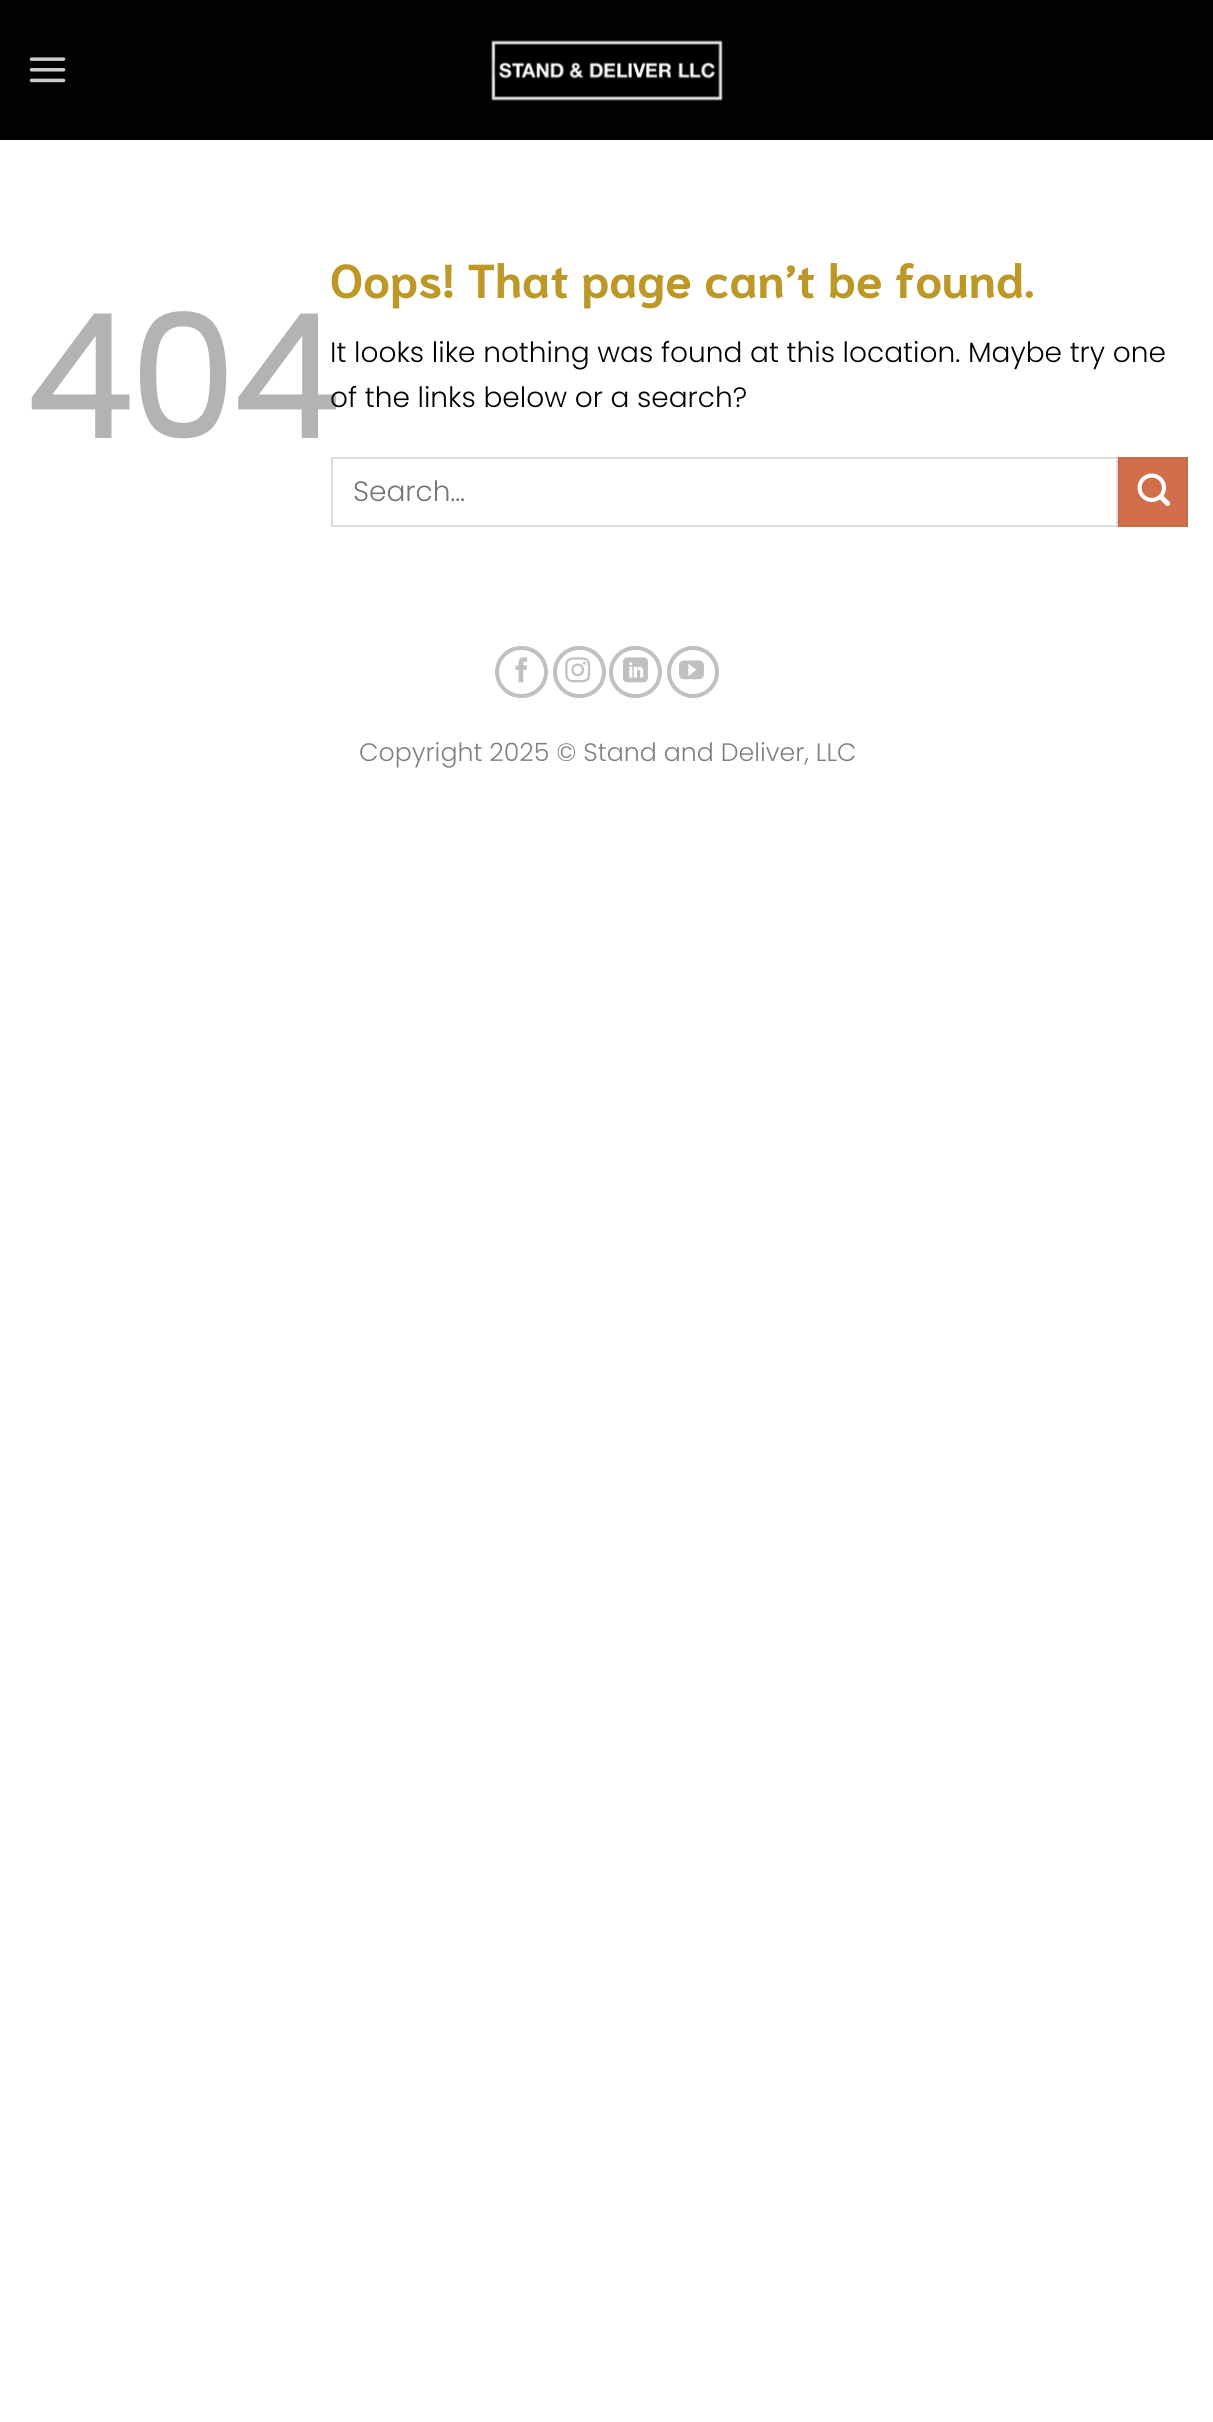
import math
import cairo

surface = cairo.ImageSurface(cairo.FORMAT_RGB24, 1213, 2422)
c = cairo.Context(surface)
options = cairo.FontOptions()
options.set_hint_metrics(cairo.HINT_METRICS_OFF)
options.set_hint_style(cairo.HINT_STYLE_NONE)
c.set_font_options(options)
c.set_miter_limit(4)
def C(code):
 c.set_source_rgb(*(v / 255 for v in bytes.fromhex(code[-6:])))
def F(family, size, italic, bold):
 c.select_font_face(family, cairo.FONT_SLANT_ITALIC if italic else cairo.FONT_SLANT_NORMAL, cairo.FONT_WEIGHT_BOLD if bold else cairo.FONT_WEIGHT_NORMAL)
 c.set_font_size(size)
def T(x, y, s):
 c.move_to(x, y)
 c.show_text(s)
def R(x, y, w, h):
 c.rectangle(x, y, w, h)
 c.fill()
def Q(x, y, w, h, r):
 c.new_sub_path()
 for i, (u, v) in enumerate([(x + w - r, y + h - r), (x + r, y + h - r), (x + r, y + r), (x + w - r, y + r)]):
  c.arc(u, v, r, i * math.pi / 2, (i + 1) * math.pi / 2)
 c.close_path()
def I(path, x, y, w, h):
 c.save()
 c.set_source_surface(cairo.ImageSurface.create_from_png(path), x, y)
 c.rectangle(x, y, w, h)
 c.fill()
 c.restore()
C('ffffff')
c.paint()
C('020202')
R(0,0,1213,140)
I('1.png',29,57,37,26)
I('2.png',491,40,232,61)
F('Poppins',168,0,1)
C('b3b3b3')
T(26,438,'404')
F('Niramit',47.6,0,1)
C('be9827')
T(330,298,'Oops! That page can’t be found.')
F('Poppins Light',28,0,0)
C('020202')
T(330,362,'It looks like nothing was found at this location. Maybe try one')
T(330,407,'of the links below or a search?')
c.rectangle(332,458,785,68)
C('dddddd')
c.stroke()
C('757575')
T(353,501,'Search…')
C('d26e4b')
c.rectangle(1119,458,68,68)
c.fill_preserve()
C('c86947')
c.stroke()
I('3.png',1137,473,34,33)
Q(497,648,49,48,24)
C('c0c0c0')
c.set_line_width(4)
c.stroke()
I('4.png',515,657,13,26)
Q(555,648,49,48,24)
c.stroke()
I('5.png',565,657,26,26)
Q(611,648,49,48,24)
c.stroke()
I('6.png',623,657,25,26)
c.arc(693,672,24,0,2 * math.pi)
c.stroke()
I('7.png',679,660,25,20)
F('Poppins Light',25.25,0,0)
C('808080')
T(359,761,'Copyright 2025 © Stand and Deliver, LLC')
surface.write_to_png('o.png')
